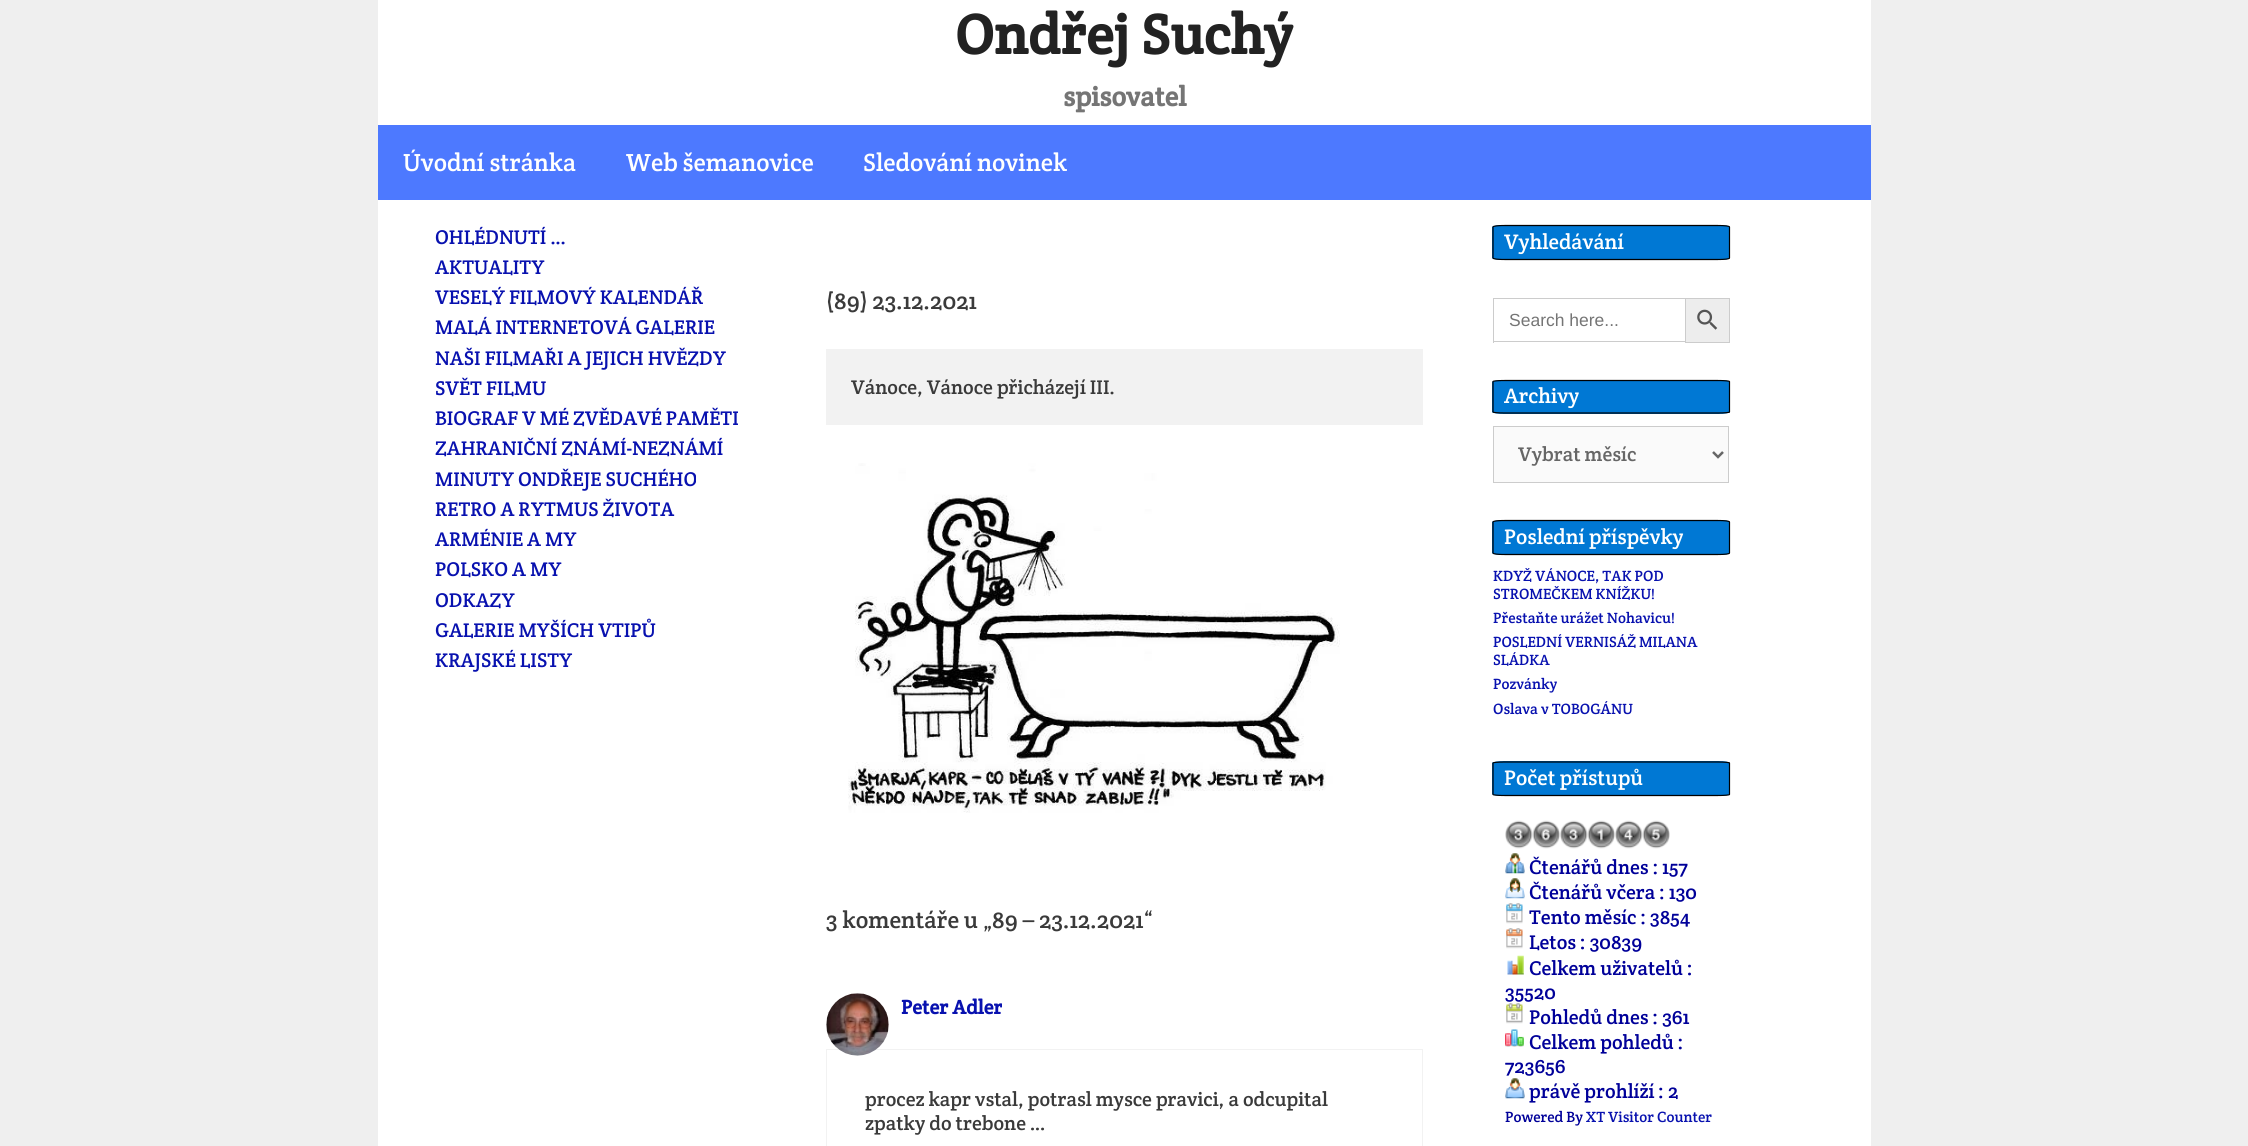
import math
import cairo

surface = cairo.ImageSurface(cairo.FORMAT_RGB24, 2248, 1146)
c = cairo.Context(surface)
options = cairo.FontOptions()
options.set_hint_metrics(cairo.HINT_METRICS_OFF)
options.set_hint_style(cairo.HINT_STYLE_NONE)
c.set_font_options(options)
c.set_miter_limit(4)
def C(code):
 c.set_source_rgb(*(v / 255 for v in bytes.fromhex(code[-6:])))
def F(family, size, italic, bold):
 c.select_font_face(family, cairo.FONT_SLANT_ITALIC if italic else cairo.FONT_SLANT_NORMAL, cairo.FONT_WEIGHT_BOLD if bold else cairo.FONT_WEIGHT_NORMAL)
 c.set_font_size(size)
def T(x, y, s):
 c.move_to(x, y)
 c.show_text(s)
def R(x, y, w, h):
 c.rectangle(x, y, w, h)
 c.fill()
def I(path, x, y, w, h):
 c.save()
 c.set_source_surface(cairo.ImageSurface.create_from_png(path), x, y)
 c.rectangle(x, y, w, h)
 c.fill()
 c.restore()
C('efefef')
c.paint()
C('ffffff')
R(378,0,1493,125)
F('Crete Round',56.25,0,1)
C('222222')
T(955,54,'Ondřej Suchý')
F('Crete Round',27.5,0,1)
C('757575')
T(1063,106,'spisovatel')
C('4d79ff')
R(378,125,1493,75)
F('Crete Round',25,0,0)
C('ffffff')
T(403,171,'Úvodní stránka')
T(626,171,'Web šemanovice')
T(863,171,'Sledování novinek')
R(378,200,1493,946)
F('Crete Round',20,0,0)
C('0811af')
T(435,244,'OHLÉDNUTÍ …')
T(435,274,'AKTUALITY')
T(435,304,'VESELÝ FILMOVÝ KALENDÁŘ')
T(435,334,'MALÁ INTERNETOVÁ GALERIE')
T(435,365,'NAŠI FILMAŘI A JEJICH HVĚZDY')
T(435,395,'SVĚT FILMU')
T(435,425,'BIOGRAF V MÉ ZVĚDAVÉ PAMĚTI')
T(435,455,'ZAHRANIČNÍ ZNÁMÍ-NEZNÁMÍ')
T(435,486,'MINUTY ONDŘEJE SUCHÉHO')
T(435,516,'RETRO A RYTMUS ŽIVOTA')
T(435,546,'ARMÉNIE A MY')
T(435,576,'POLSKO A MY')
T(435,607,'ODKAZY')
T(435,637,'GALERIE MYŠÍCH VTIPŮ')
T(435,667,'KRAJSKÉ LISTY')
F('Crete Round',23.75,0,0)
C('3a3a3a')
T(826,309,'(89) 23.12.2021')
C('f2f2f2')
R(826,349,597,76)
F('Crete Round',20,0,0)
C('3a3a3a')
T(851,394,'Vánoce, Vánoce přicházejí III.')
I('1.png',848,463,492,350)
F('Crete Round',23.75,0,0)
T(826,928,'3 komentáře u „89 – 23.12.2021“')
c.rectangle(826.5,1049.5,596,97)
C('f2f2f2')
c.set_line_width(1)
c.stroke()
I('2.png',826,993,63,63)
F('Crete Round',20,0,1)
C('0811af')
T(901,1014,'Peter Adler')
F('Crete Round',20,0,0)
C('3a3a3a')
T(865,1106,'procez kapr vstal, potrasl mysce pravici, a odcupital')
T(865,1130,'zpatky do trebone …')
C('0078d4')
c.new_path()
c.move_to(1504,225)
c.line_to(1718,225)
c.curve_to(1725,225,1730,226,1730,227)
c.line_to(1730,258)
c.curve_to(1730,259,1725,260,1718,260)
c.line_to(1504,260)
c.curve_to(1498,260,1492,259,1492,258)
c.line_to(1492,227)
c.curve_to(1492,226,1498,225,1504,225)
c.close_path()
c.fill()
c.new_path()
c.move_to(1504.5,225.5)
c.line_to(1718,225.5)
c.curve_to(1724.5,225.5,1729.5,226,1729.5,227)
c.line_to(1729.5,258)
c.curve_to(1729.5,259,1724.5,259.5,1718,259.5)
c.line_to(1504.5,259.5)
c.curve_to(1498,259.5,1493,259,1493,258)
c.line_to(1493,227)
c.curve_to(1493,226,1498,225.5,1504.5,225.5)
c.close_path()
C('000000')
c.set_line_width(1.2)
c.stroke()
F('Crete Round',21.25,0,0)
C('ffffff')
T(1504,249,'Vyhledávání')
C('cccccc')
R(1493,298,192,1)
R(1493,341,192,1)
R(1493,298,1,45)
F('Liberation Sans',17.5,0,0)
C('757575')
T(1509,326,'Search here...')
C('ededed')
c.rectangle(1685.5,298.5,44,44)
c.fill_preserve()
C('cccccc')
c.set_line_width(1)
c.stroke()
I('3.png',1697,309,21,21)
C('0078d4')
c.new_path()
c.move_to(1504,380)
c.line_to(1718,380)
c.curve_to(1725,380,1730,381,1730,382)
c.line_to(1730,412)
c.curve_to(1730,413,1725,414,1718,414)
c.line_to(1504,414)
c.curve_to(1498,414,1492,413,1492,412)
c.line_to(1492,382)
c.curve_to(1492,381,1498,380,1504,380)
c.close_path()
c.fill()
c.new_path()
c.move_to(1504.5,380.5)
c.line_to(1718,380.5)
c.curve_to(1724.5,380.5,1729.5,381,1729.5,381.5)
c.line_to(1729.5,412)
c.curve_to(1729.5,412.5,1724.5,413,1718,413)
c.line_to(1504.5,413)
c.curve_to(1498,413,1493,412.5,1493,412)
c.line_to(1493,381.5)
c.curve_to(1493,381,1498,380.5,1504.5,380.5)
c.close_path()
C('000000')
c.set_line_width(1.2)
c.stroke()
F('Crete Round',21.25,0,0)
C('ffffff')
T(1504,403,'Archivy')
C('fafafa')
c.rectangle(1493.5,426.5,235,56)
c.fill_preserve()
C('cccccc')
c.set_line_width(1)
c.stroke()
c.new_path()
c.move_to(1713,452)
c.line_to(1718,457)
c.line_to(1723,452)
C('666666')
c.set_line_width(2.5)
c.stroke()
F('Crete Round',20,0,0)
T(1518,461,'Vybrat měsíc')
C('0078d4')
c.new_path()
c.move_to(1504,520)
c.line_to(1718,520)
c.curve_to(1725,520,1730,521,1730,522)
c.line_to(1730,553)
c.curve_to(1730,554,1725,555,1718,555)
c.line_to(1504,555)
c.curve_to(1498,555,1492,554,1492,553)
c.line_to(1492,522)
c.curve_to(1492,521,1498,520,1504,520)
c.close_path()
c.fill()
c.new_path()
c.move_to(1504.5,520.5)
c.line_to(1718,520.5)
c.curve_to(1724.5,520.5,1729.5,521,1729.5,522)
c.line_to(1729.5,553)
c.curve_to(1729.5,554,1724.5,554.5,1718,554.5)
c.line_to(1504.5,554.5)
c.curve_to(1498,554.5,1493,554,1493,553)
c.line_to(1493,522)
c.curve_to(1493,521,1498,520.5,1504.5,520.5)
c.close_path()
C('000000')
c.set_line_width(1.2)
c.stroke()
F('Crete Round',21.25,0,0)
C('ffffff')
T(1504,544,'Poslední příspěvky')
F('Crete Round',15,0,0)
C('0811af')
T(1493,581,'KDYŽ VÁNOCE, TAK POD')
T(1493,599,'STROMEČKEM KNÍŽKU!')
T(1493,623,'Přestaňte urážet Nohavicu!')
T(1493,647,'POSLEDNÍ VERNISÁŽ MILANA')
T(1493,665,'SLÁDKA')
T(1493,689,'Pozvánky')
T(1493,714,'Oslava v TOBOGÁNU')
C('0078d4')
c.new_path()
c.move_to(1504,761)
c.line_to(1718,761)
c.curve_to(1725,761,1730,762,1730,763)
c.line_to(1730,794)
c.curve_to(1730,795,1725,796,1718,796)
c.line_to(1504,796)
c.curve_to(1498,796,1492,795,1492,794)
c.line_to(1492,763)
c.curve_to(1492,762,1498,761,1504,761)
c.close_path()
c.fill()
c.new_path()
c.move_to(1504.5,762)
c.line_to(1718,762)
c.curve_to(1724.5,762,1729.5,762.5,1729.5,763)
c.line_to(1729.5,794.5)
c.curve_to(1729.5,795,1724.5,795.5,1718,795.5)
c.line_to(1504.5,795.5)
c.curve_to(1498,795.5,1493,795,1493,794.5)
c.line_to(1493,763)
c.curve_to(1493,762.5,1498,762,1504.5,762)
c.close_path()
C('000000')
c.stroke()
F('Crete Round',21.25,0,0)
C('ffffff')
T(1504,785,'Počet přístupů')
I('4.png',1505,820,28,29)
I('5.png',1532,820,28,29)
I('6.png',1560,820,28,29)
I('7.png',1587,820,28,29)
I('8.png',1615,820,28,29)
I('9.png',1642,820,28,29)
I('10.png',1505,853,20,21)
F('Crete Round',20,0,0)
C('000099')
T(1529,874,'Čtenářů dnes : 157')
I('11.png',1505,878,20,21)
T(1529,899,'Čtenářů včera : 130')
I('12.png',1506,903,17,21)
T(1529,924,'Tento měsíc : 3854')
I('13.png',1506,928,17,21)
T(1529,949,'Letos : 30839')
I('14.png',1507,955,17,20)
T(1529,975,'Celkem uživatelů :')
T(1505,999,'35520')
I('15.png',1506,1003,17,21)
T(1529,1024,'Pohledů dnes : 361')
I('16.png',1505,1029,19,18)
T(1529,1049,'Celkem pohledů :')
T(1505,1073,'723656')
I('17.png',1505,1078,20,21)
T(1529,1098,'právě prohlíží : 2')
F('Crete Round',15,0,0)
T(1505,1122,'Powered By')
C('0811af')
T(1586,1122,'XT Visitor Counter')
surface.write_to_png('o.png')
